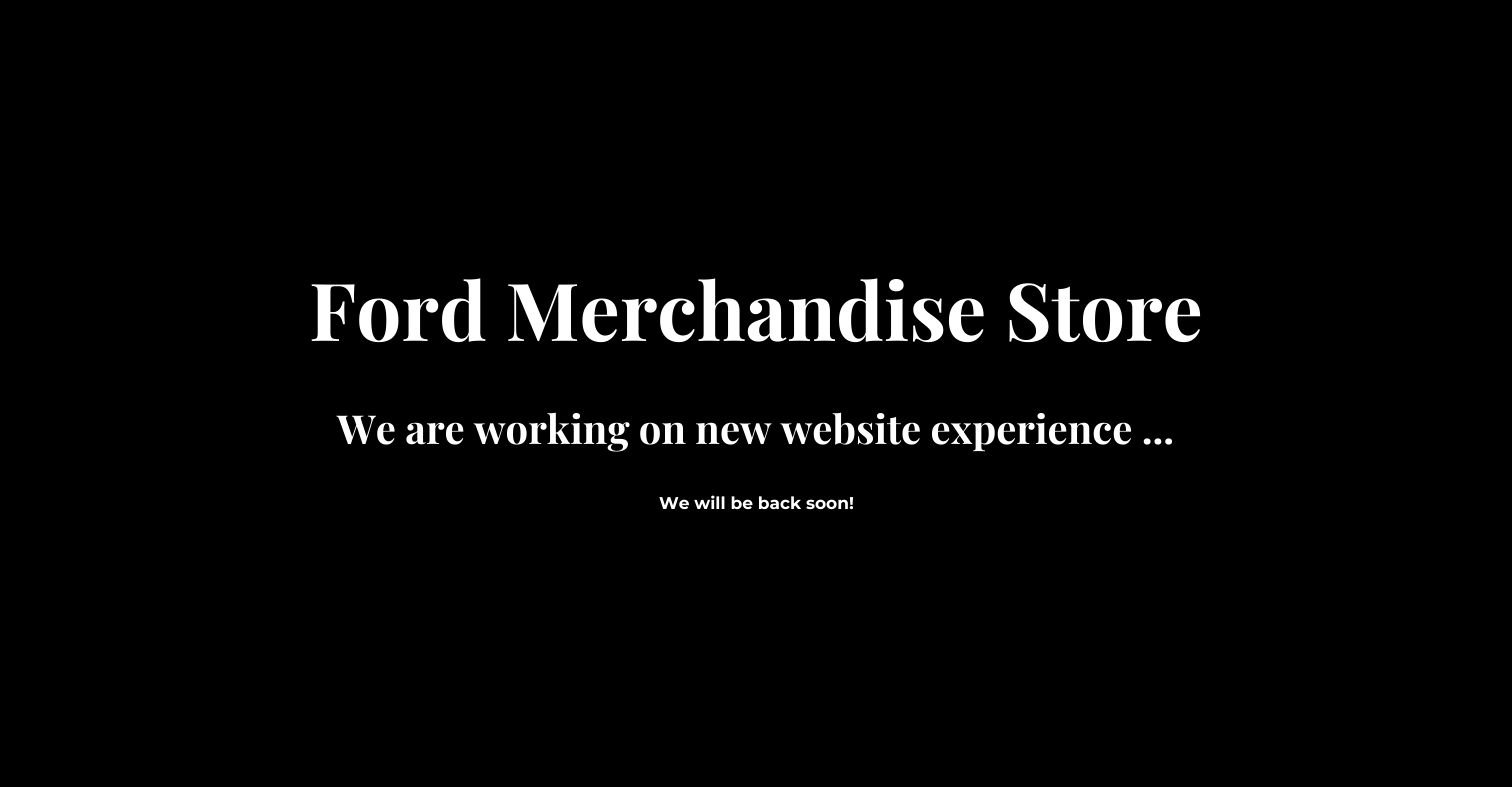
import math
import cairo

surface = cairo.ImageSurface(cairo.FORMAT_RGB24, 1512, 787)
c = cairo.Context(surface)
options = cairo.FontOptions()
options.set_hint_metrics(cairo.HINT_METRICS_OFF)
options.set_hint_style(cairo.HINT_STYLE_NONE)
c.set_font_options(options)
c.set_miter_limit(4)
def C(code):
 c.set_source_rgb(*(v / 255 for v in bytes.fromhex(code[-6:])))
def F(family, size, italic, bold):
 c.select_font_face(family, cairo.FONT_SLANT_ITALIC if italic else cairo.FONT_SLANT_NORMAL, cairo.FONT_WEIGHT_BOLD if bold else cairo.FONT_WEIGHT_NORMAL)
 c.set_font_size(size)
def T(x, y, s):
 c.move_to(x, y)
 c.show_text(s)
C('000000')
c.paint()
F('Playfair Display',80,0,1)
C('ffffff')
T(309,341,'Ford Merchandise Store')
F('Playfair Display',40,0,1)
T(337,444,'We are working on new website experience ...')
F('Montserrat',17,0,1)
T(659,509,'We will be back soon!')
surface.write_to_png('o.png')
